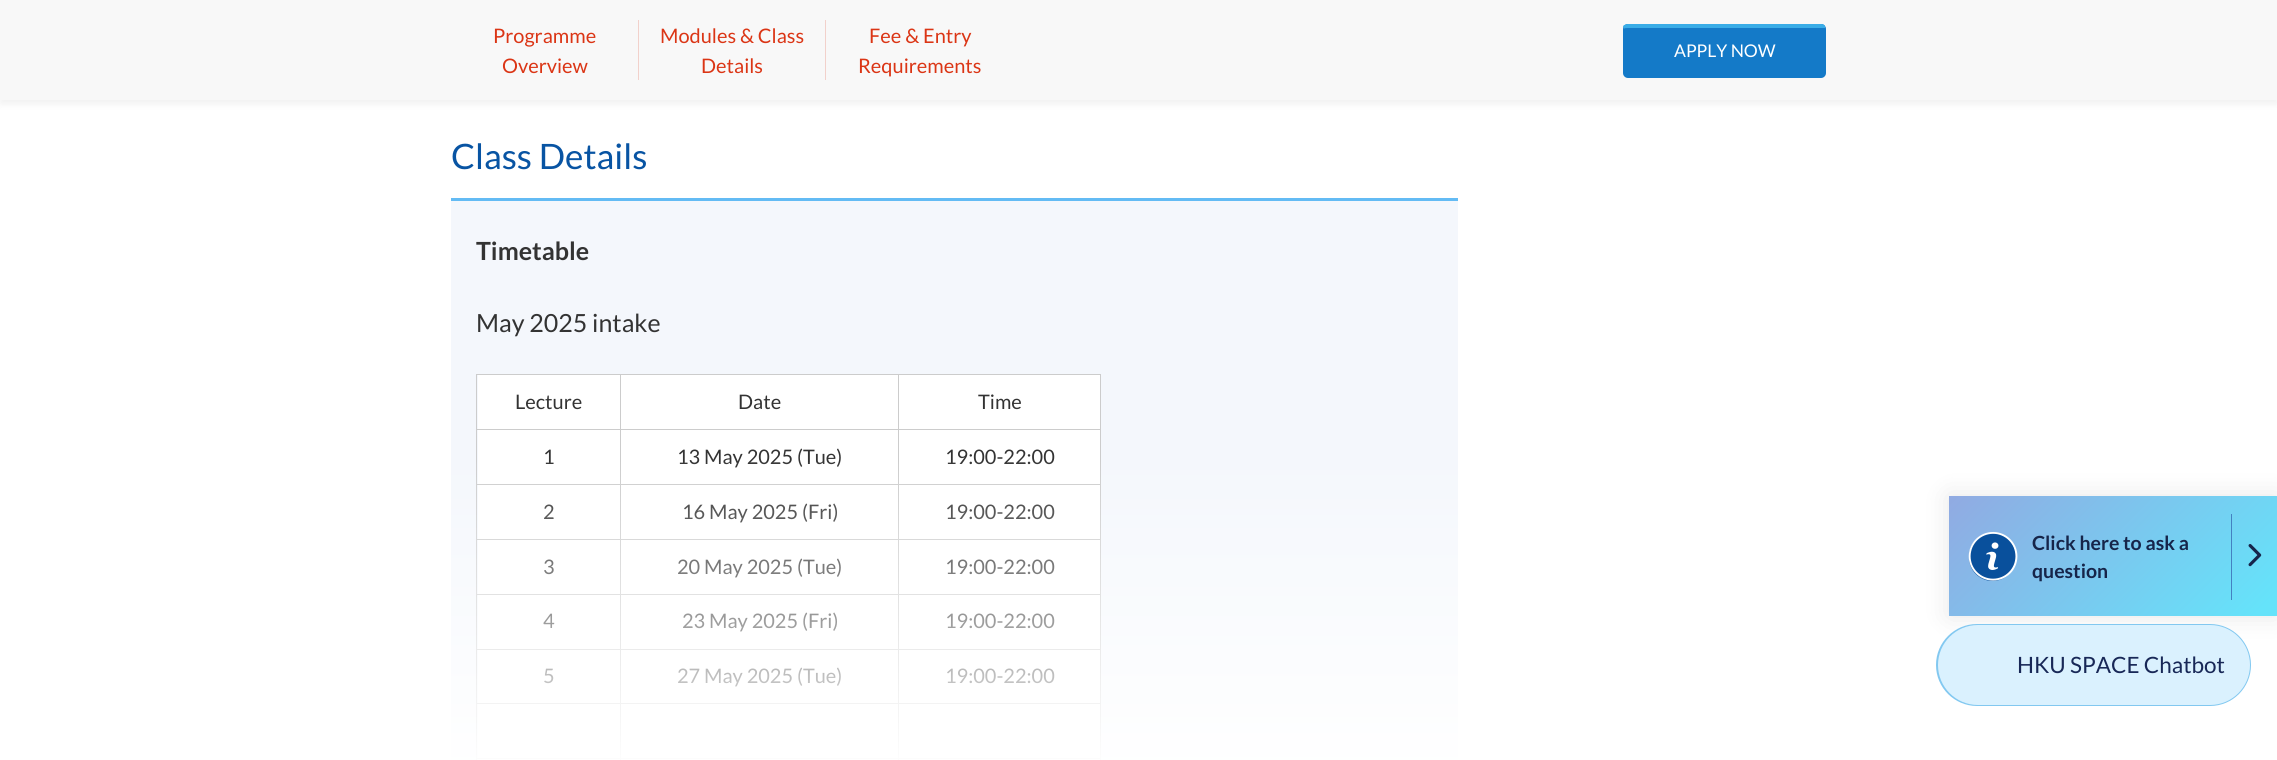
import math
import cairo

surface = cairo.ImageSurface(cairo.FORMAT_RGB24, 2277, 760)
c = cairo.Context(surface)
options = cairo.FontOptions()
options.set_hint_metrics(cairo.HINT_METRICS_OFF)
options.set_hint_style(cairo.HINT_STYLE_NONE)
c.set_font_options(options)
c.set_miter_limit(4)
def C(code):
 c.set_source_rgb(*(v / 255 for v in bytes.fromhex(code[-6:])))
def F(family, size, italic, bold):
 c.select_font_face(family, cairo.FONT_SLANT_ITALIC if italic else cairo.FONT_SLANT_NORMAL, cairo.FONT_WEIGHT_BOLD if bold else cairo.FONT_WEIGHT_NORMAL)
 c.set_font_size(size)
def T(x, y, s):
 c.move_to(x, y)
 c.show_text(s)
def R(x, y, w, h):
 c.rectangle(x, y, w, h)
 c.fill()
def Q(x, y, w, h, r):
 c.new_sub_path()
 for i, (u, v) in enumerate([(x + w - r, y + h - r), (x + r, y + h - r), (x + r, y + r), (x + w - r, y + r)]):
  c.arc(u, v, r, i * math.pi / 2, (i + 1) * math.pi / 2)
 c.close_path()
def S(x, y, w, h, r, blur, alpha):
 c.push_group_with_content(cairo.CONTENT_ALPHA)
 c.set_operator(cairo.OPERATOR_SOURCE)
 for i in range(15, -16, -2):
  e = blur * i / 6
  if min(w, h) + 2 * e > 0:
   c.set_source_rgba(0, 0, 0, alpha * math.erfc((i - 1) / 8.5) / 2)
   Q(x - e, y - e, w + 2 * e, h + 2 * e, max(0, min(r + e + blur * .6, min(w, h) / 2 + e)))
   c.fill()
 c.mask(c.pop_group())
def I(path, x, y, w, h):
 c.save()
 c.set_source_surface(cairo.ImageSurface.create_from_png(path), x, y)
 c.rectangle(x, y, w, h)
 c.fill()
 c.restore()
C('ffffff')
c.paint()
C('000000')
S(0,4,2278,100,0,4,.06)
C('f8f8f8')
R(0,0,2277,100)
F('Lato',20,0,0)
C('db3515')
T(493,43,'Programme')
T(502,73,'Overview')
C('f2d1cb')
R(638,20,1,60)
C('db3515')
T(660,43,'Modules & Class')
T(701,73,'Details')
C('f2d1cb')
R(825,20,1,60)
C('db3515')
T(869,43,'Fee & Entry')
T(858,73,'Requirements')
C('147ac8')
Q(1623,24,203,54,5)
c.fill()
C('3aade7')
c.new_path()
c.move_to(1628,24)
c.curve_to(1626,24,1624,25,1623,26)
c.line_to(1624,29)
c.curve_to(1624,28,1626,28,1628,28)
c.line_to(1821,28)
c.curve_to(1823,28,1824,28,1825,28)
c.line_to(1825,26)
c.curve_to(1825,25,1823,24,1821,24)
c.close_path()
c.fill()
F('Lato',17.5,0,0)
C('ffffff')
T(1674,57,'APPLY NOW')
F('Lato',35,0,0)
C('0854a3')
T(451,169,'Class Details')
C('f4f7fc')
R(451,201,1007,559)
C('63bbf4')
R(451,198,1007,3)
F('Lato',25,0,1)
C('333333')
T(476,260,'Timetable')
F('Lato',25,0,0)
T(476,332,'May 2025 intake')
C('cccccc')
R(476,374,625,1)
C('ffffff')
R(478,759,623,1)
C('cccccc')
R(1100,374,1,386)
R(476,374,1,386)
C('ffffff')
R(478,375,142,54)
F('Lato',20,0,0)
C('333333')
T(515,409,'Lecture')
C('ffffff')
R(621,375,277,54)
C('cccccc')
R(898,429,203,1)
R(898,484,203,1)
R(898,539,203,1)
R(898,594,203,1)
R(898,649,203,1)
R(898,703,203,1)
R(898,758,203,1)
R(898,758,1,2)
R(620,758,279,1)
R(898,703,1,56)
R(620,703,279,1)
R(898,649,1,55)
R(620,649,279,1)
R(898,594,1,56)
R(620,594,279,1)
R(898,539,1,56)
R(620,539,279,1)
R(898,484,1,56)
R(620,484,279,1)
R(898,429,1,56)
R(620,429,279,1)
R(620,758,1,2)
R(476,758,145,1)
R(620,703,1,56)
R(476,703,145,1)
R(620,649,1,55)
R(476,649,145,1)
R(620,594,1,56)
R(476,594,145,1)
R(620,539,1,56)
R(476,539,145,1)
R(620,484,1,56)
R(476,484,145,1)
R(620,429,1,56)
R(476,429,145,1)
R(620,374,1,56)
C('333333')
T(738,409,'Date')
C('ffffff')
R(899,375,201,54)
C('cccccc')
R(898,374,1,56)
C('333333')
T(978,409,'Time')
C('ffffff')
R(478,430,142,54)
C('333333')
T(543,464,'1')
C('ffffff')
R(621,430,277,54)
C('333333')
T(677,464,'13 May 2025 (Tue)')
C('ffffff')
R(899,430,201,54)
C('333333')
T(945,464,'19:00-22:00')
C('ffffff')
R(478,485,142,54)
C('333333')
T(543,519,'2')
C('ffffff')
R(621,485,277,54)
C('333333')
T(682,519,'16 May 2025 (Fri)')
C('ffffff')
R(899,485,201,54)
C('333333')
T(945,519,'19:00-22:00')
C('ffffff')
R(478,540,142,54)
C('333333')
T(543,574,'3')
C('ffffff')
R(621,540,277,54)
C('333333')
T(677,574,'20 May 2025 (Tue)')
C('ffffff')
R(899,540,201,54)
C('333333')
T(945,574,'19:00-22:00')
C('ffffff')
R(478,595,142,54)
C('333333')
T(543,628,'4')
C('ffffff')
R(621,595,277,54)
C('333333')
T(682,628,'23 May 2025 (Fri)')
C('ffffff')
R(899,595,201,54)
C('333333')
T(945,628,'19:00-22:00')
C('ffffff')
R(478,650,142,53)
C('333333')
T(543,683,'5')
C('ffffff')
R(621,650,277,53)
C('333333')
T(677,683,'27 May 2025 (Tue)')
C('ffffff')
R(899,650,201,53)
C('333333')
T(945,683,'19:00-22:00')
C('ffffff')
R(478,704,142,54)
R(621,704,277,54)
R(899,704,201,54)
gradient = cairo.LinearGradient(954,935,954,455)
gradient.add_color_stop_rgba(0,1,1,1,1)
gradient.add_color_stop_rgba(.33,1,1,1,1)
gradient.add_color_stop_rgba(1,1,1,1,0)
c.set_source(gradient)
R(451,462,1007,298)
C('000000')
S(1949,496,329,120,0,12.5,.1)
gradient = cairo.LinearGradient(2001,444,2225,668)
gradient.add_color_stop_rgba(0,0.569,0.667,0.886,1)
gradient.add_color_stop_rgba(.95,0.396,0.89,0.98,1)
c.set_source(gradient)
R(1949,496,328,120)
C('09509c')
Q(1969,533,47,48,23.5)
c.fill()
I('1.png',1968,531,50,50)
F('Lato',19.5,0,1)
C('16254a')
T(2032,550,'Click here to ask a')
T(2032,578,'question')
C('4381c1')
R(2231,514,1,86)
I('2.png',2248,544,14,23)
C('82c8f0')
Q(1936,624,315,82,41)
c.fill()
C('daf1fe')
Q(1938,625,312,80,40)
c.fill()
F('Lato',22.5,0,0)
C('182857')
T(2017,673,'HKU SPACE Chatbot')
surface.write_to_png('o.png')
